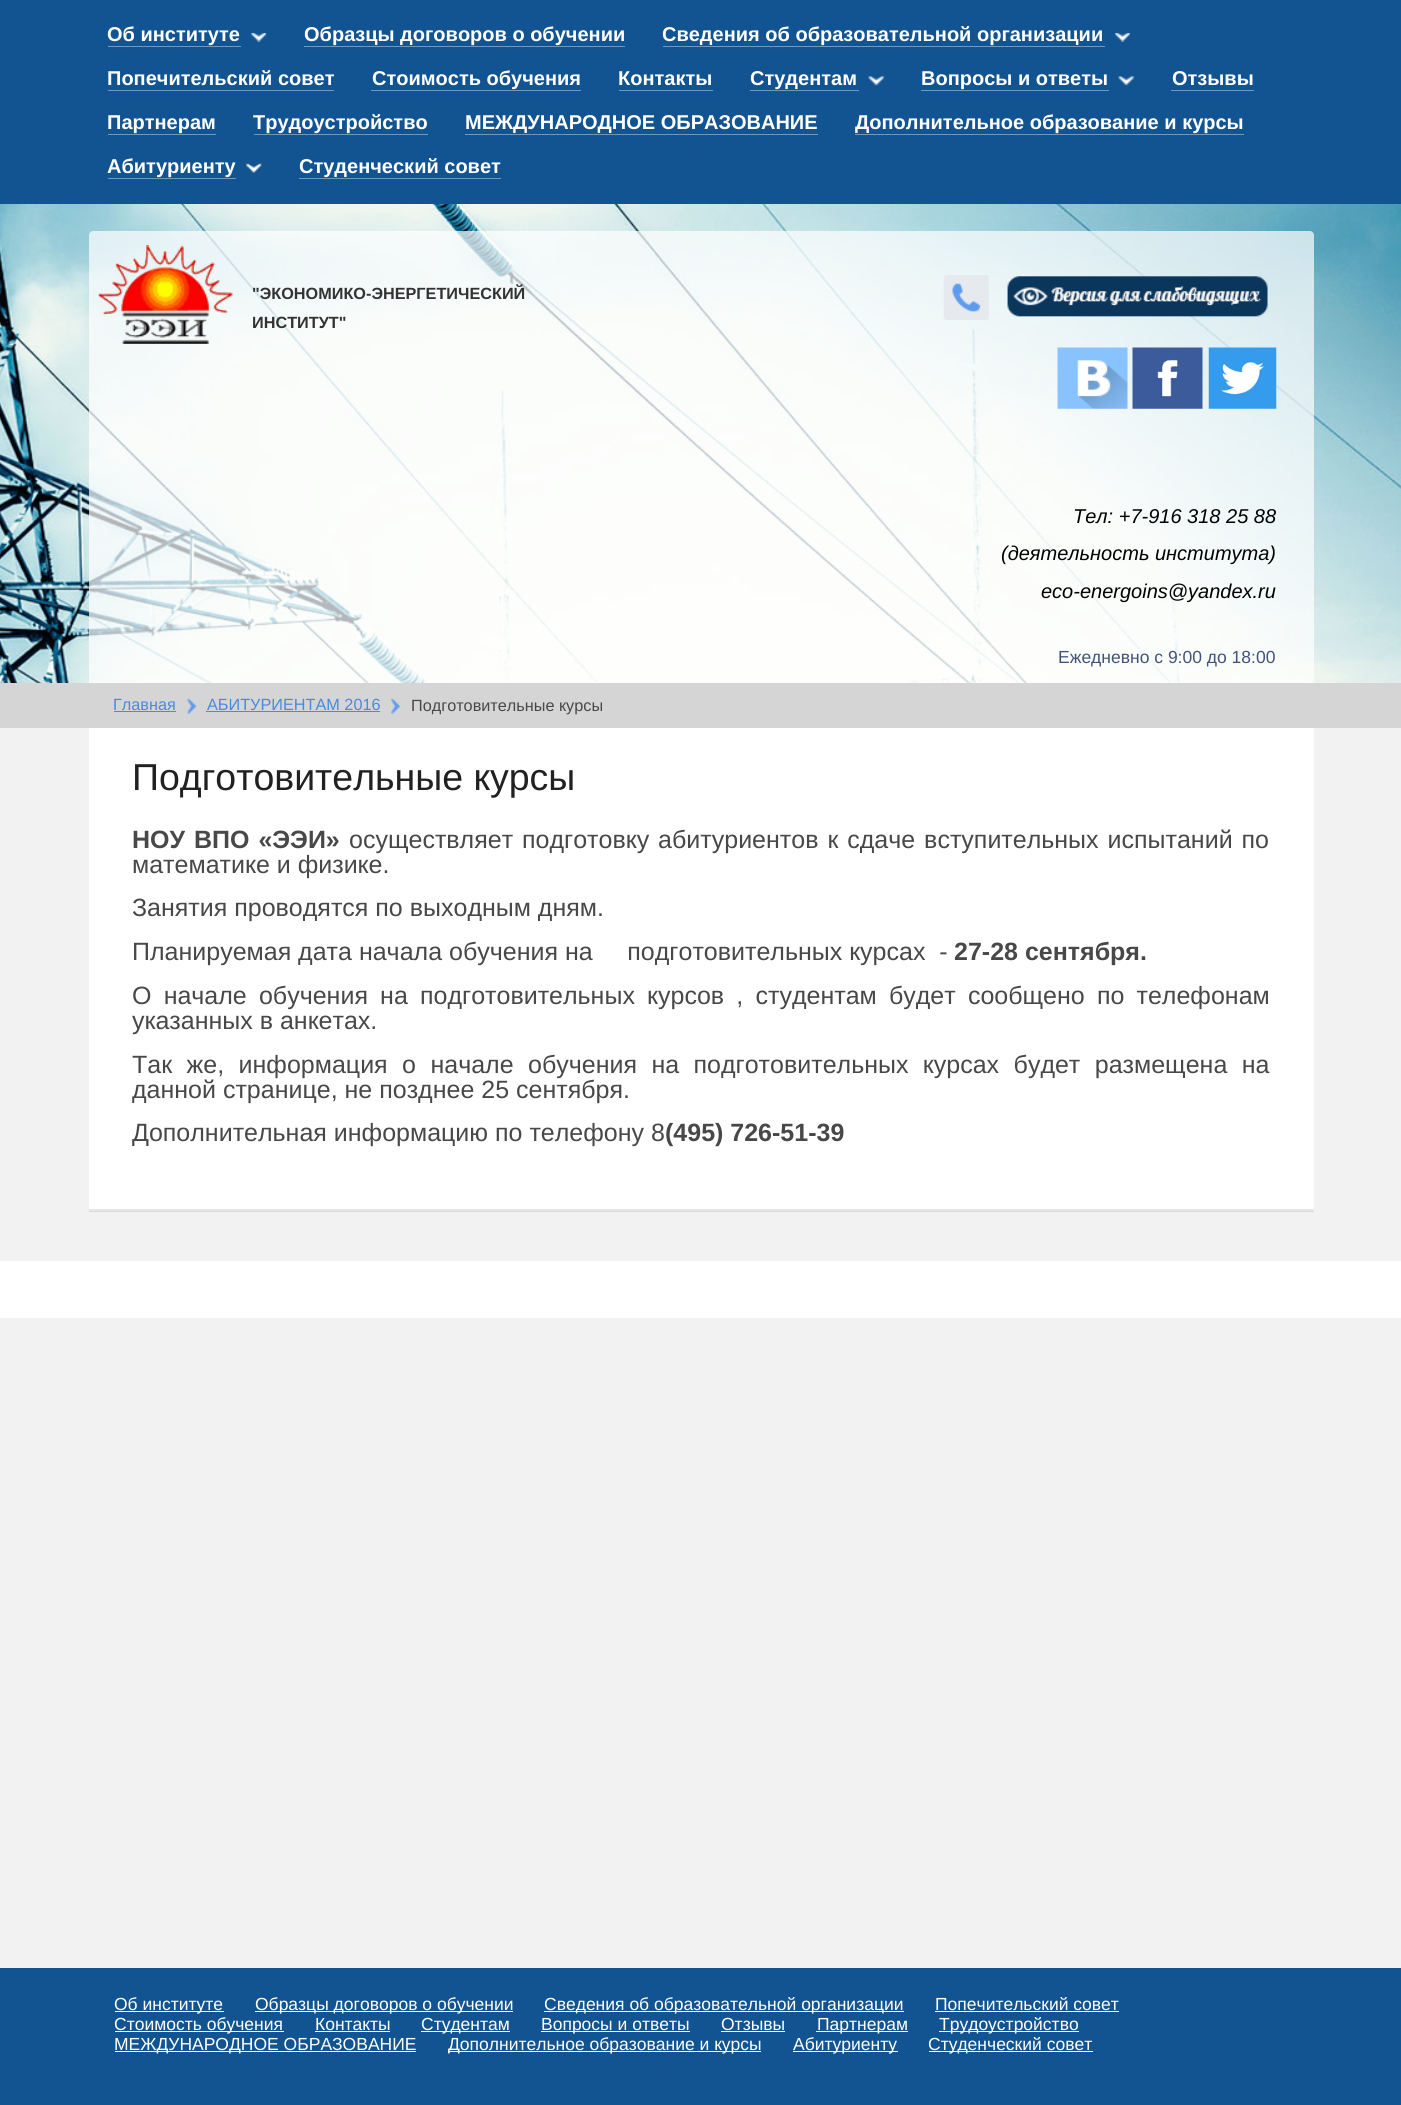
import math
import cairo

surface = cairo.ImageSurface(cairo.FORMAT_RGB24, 1401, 2105)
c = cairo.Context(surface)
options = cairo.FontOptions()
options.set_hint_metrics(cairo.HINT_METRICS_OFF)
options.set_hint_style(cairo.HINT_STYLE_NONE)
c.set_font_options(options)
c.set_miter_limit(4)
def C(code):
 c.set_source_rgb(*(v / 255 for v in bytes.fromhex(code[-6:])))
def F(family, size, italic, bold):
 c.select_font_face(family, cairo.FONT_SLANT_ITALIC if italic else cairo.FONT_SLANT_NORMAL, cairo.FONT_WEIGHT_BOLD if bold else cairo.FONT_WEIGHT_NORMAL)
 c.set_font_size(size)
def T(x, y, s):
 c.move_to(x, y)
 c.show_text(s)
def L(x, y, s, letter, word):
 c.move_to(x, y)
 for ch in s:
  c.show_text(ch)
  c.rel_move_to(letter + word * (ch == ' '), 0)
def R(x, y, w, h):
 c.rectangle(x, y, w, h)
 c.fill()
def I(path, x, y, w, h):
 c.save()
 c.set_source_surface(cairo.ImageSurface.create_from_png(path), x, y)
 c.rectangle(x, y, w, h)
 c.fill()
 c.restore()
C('f2f2f2')
c.paint()
C('dadada')
R(89,1211,1225,1)
C('125491')
R(0,0,1401,204)
F('Liberation Sans',20,0,1)
C('ffffff')
T(107,41,'Об институте')
I('1.png',251,33,16,9)
C('7198bd')
R(108,46,133,1)
C('ffffff')
T(304,41,'Образцы договоров о обучении')
C('7198bd')
R(304,46,321,1)
C('ffffff')
T(662,41,'Сведения об образовательной организации')
I('2.png',1115,33,15,9)
C('7198bd')
R(663,46,442,1)
C('ffffff')
T(107,85,'Попечительский совет')
C('7198bd')
R(108,90,226,1)
C('ffffff')
T(372,85,'Стоимость обучения')
C('7198bd')
R(371,90,210,1)
C('ffffff')
T(618,85,'Контакты')
C('7198bd')
R(619,90,94,1)
C('ffffff')
T(750,85,'Студентам')
I('3.png',868,76,17,10)
C('7198bd')
R(750,90,109,1)
C('ffffff')
T(921,85,'Вопросы и ответы')
I('3.png',1118,76,17,10)
C('7198bd')
R(921,90,188,1)
C('ffffff')
T(1172,85,'Отзывы')
C('7198bd')
R(1171,90,83,1)
C('ffffff')
T(107,129,'Партнерам')
C('7198bd')
R(108,134,108,1)
C('ffffff')
T(253,129,'Трудоустройство')
C('7198bd')
R(254,134,174,1)
C('ffffff')
T(465,129,'МЕЖДУНАРОДНОЕ ОБРАЗОВАНИЕ')
C('7198bd')
R(465,134,353,1)
C('ffffff')
T(855,129,'Дополнительное образование и курсы')
C('7198bd')
R(855,134,389,1)
C('ffffff')
T(107,173,'Абитуриенту')
I('4.png',246,163,16,10)
C('7198bd')
R(108,178,128,1)
C('ffffff')
T(299,173,'Студенческий совет')
C('7198bd')
R(299,178,202,1)
I('5.png',0,204,1401,479)
c.set_source_rgba(1,1,1,0.7)
c.new_path()
c.move_to(93,231)
c.line_to(1310,231)
c.curve_to(1312,231,1314,233,1314,235)
c.line_to(1314,683)
c.line_to(89,683)
c.line_to(89,235)
c.curve_to(89,233,91,231,93,231)
c.close_path()
c.fill()
I('6.png',98,245,135,99)
F('Liberation Sans',16.25,0,1)
C('333333')
T(252,299,'"ЭКОНОМИКО-ЭНЕРГЕТИЧЕСКИЙ')
T(252,328,'ИНСТИТУТ"')
I('7.png',943,275,46,45)
I('8.png',1007,276,261,41)
I('9.png',1057,347,71,62)
I('10.png',1132,347,71,62)
I('11.png',1208,347,69,62)
F('Liberation Sans',20,1,0)
C('000000')
T(1073,523,'Тел: +7-916 318 25 88')
T(1001,560,'(деятельность института)')
T(1041,598,'eco-energoins@yandex.ru')
F('Liberation Sans',17.5,0,0)
C('425378')
T(1058,663,'Ежедневно с 9:00 до 18:00')
C('d5d5d5')
R(0,683,1401,45)
F('Liberation Sans',16.25,0,0)
C('4b89dc')
T(113,710,'Главная')
R(114,711,62,1)
I('12.png',187,698,10,16)
T(207,710,'АБИТУРИЕНТАМ 2016')
R(206,711,174,1)
I('13.png',391,698,9,16)
C('484848')
T(411,711,'Подготовительные курсы')
C('ffffff')
R(89,728,1225,481)
C('e6e6e6')
R(89,1209,1225,2)
F('Liberation Sans',37.5,0,0)
C('212121')
T(132,790,'Подготовительные курсы')
F('Liberation Sans',25,0,1)
C('484848')
L(132,848,'НОУ ВПО «ЭЭИ»',0,2)
F('Liberation Sans',25,0,0)
L(349,848,'осуществляет подготовку абитуриентов к сдаче вступительных испытаний по',0,2)
T(132,873,'математике и физике.')
T(132,916,'Занятия проводятся по выходным дням.')
T(132,960,'Планируемая дата начала обучения на     подготовительных курсах  -')
F('Liberation Sans',25,0,1)
T(954,960,'27-28 сентября.')
F('Liberation Sans',25,0,0)
L(132,1004,'О начале обучения на подготовительных курсов , студентам будет сообщено по телефонам',0,5.25)
T(132,1029,'указанных в анкетах.')
L(132,1073,'Так же, информация о начале обучения на подготовительных курсах будет размещена на',0,7.5)
T(132,1098,'данной странице, не позднее 25 сентября.')
T(132,1141,'Дополнительная информацию по телефону 8')
F('Liberation Sans',25,0,1)
T(665,1141,'(495) 726-51-39')
C('ffffff')
R(0,1261,1401,57)
C('125491')
R(0,1968,1401,137)
C('ffffff')
R(115,2011,109,1)
F('Liberation Sans',17.5,0,0)
T(114,2010,'Об институте')
R(255,2011,258,1)
T(255,2010,'Образцы договоров о обучении')
R(544,2011,360,1)
T(544,2010,'Сведения об образовательной организации')
T(935,2010,'Попечительский совет')
R(935,2011,184,1)
R(115,2031,169,1)
T(114,2030,'Стоимость обучения')
T(315,2030,'Контакты')
R(315,2031,75,1)
R(421,2031,89,1)
T(421,2030,'Студентам')
R(541,2031,149,1)
T(541,2030,'Вопросы и ответы')
T(721,2030,'Отзывы')
R(721,2031,64,1)
R(816,2031,92,1)
T(817,2030,'Партнерам')
R(939,2031,140,1)
T(939,2030,'Трудоустройство')
R(115,2051,301,1)
T(114,2050,'МЕЖДУНАРОДНОЕ ОБРАЗОВАНИЕ')
R(448,2051,313,1)
T(448,2050,'Дополнительное образование и курсы')
R(793,2051,105,1)
T(793,2050,'Абитуриенту')
R(929,2051,164,1)
T(928,2050,'Студенческий совет')
surface.write_to_png('o.png')
